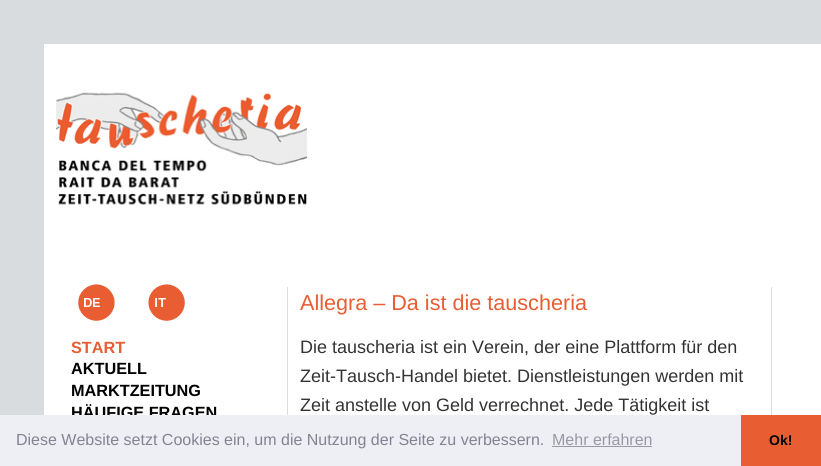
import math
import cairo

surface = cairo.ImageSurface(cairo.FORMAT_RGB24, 821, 466)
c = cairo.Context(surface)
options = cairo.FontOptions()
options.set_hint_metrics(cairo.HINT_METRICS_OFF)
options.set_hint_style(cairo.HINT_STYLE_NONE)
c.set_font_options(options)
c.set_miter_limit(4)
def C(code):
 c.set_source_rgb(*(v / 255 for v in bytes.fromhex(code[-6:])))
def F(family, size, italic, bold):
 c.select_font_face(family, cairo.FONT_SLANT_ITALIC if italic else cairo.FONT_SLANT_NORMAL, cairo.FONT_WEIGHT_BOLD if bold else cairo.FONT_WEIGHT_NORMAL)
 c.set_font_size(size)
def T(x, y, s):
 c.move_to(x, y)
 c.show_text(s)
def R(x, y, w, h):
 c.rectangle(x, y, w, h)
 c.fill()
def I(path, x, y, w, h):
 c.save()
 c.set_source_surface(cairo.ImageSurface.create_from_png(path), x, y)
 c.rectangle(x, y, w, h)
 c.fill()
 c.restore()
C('d9dcde')
c.paint()
C('ffffff')
R(44,44,777,371)
I('1.png',56,92,251,113)
I('2.png',78,284,37,37)
I('3.png',148,284,37,37)
C('dddddd')
R(771,287,1,128)
R(287,287,1,128)
F('Liberation Sans',21.6,0,0)
C('e85d32')
T(300,310,'Allegra – Da ist die tauscheria')
F('Liberation Sans',18,0,0)
C('333333')
T(300,353,'Die tauscheria ist ein Verein, der eine Plattform für den')
T(300,382,'Zeit-Tausch-Handel bietet. Dienstleistungen werden mit')
T(300,411,'Zeit anstelle von Geld verrechnet. Jede Tätigkeit ist')
F('Liberation Sans',16.25,0,1)
C('e85d32')
T(71,353,'START')
C('000000')
T(71,374,'AKTUELL')
T(71,396,'MARKTZEITUNG')
T(71,418,'HÄUFIGE FRAGEN')
C('edeff5')
R(0,415,741,51)
F('Liberation Sans',16,0,0)
C('838391')
T(16,445,'Diese Website setzt Cookies ein, um die Nutzung der Seite zu verbessern.')
C('9899a5')
T(552,445,'Mehr erfahren')
R(552,446,100,1)
C('e85d32')
R(741,415,80,51)
F('Liberation Sans',14,0,1)
C('000000')
T(769,445,'Ok!')
surface.write_to_png('o.png')
